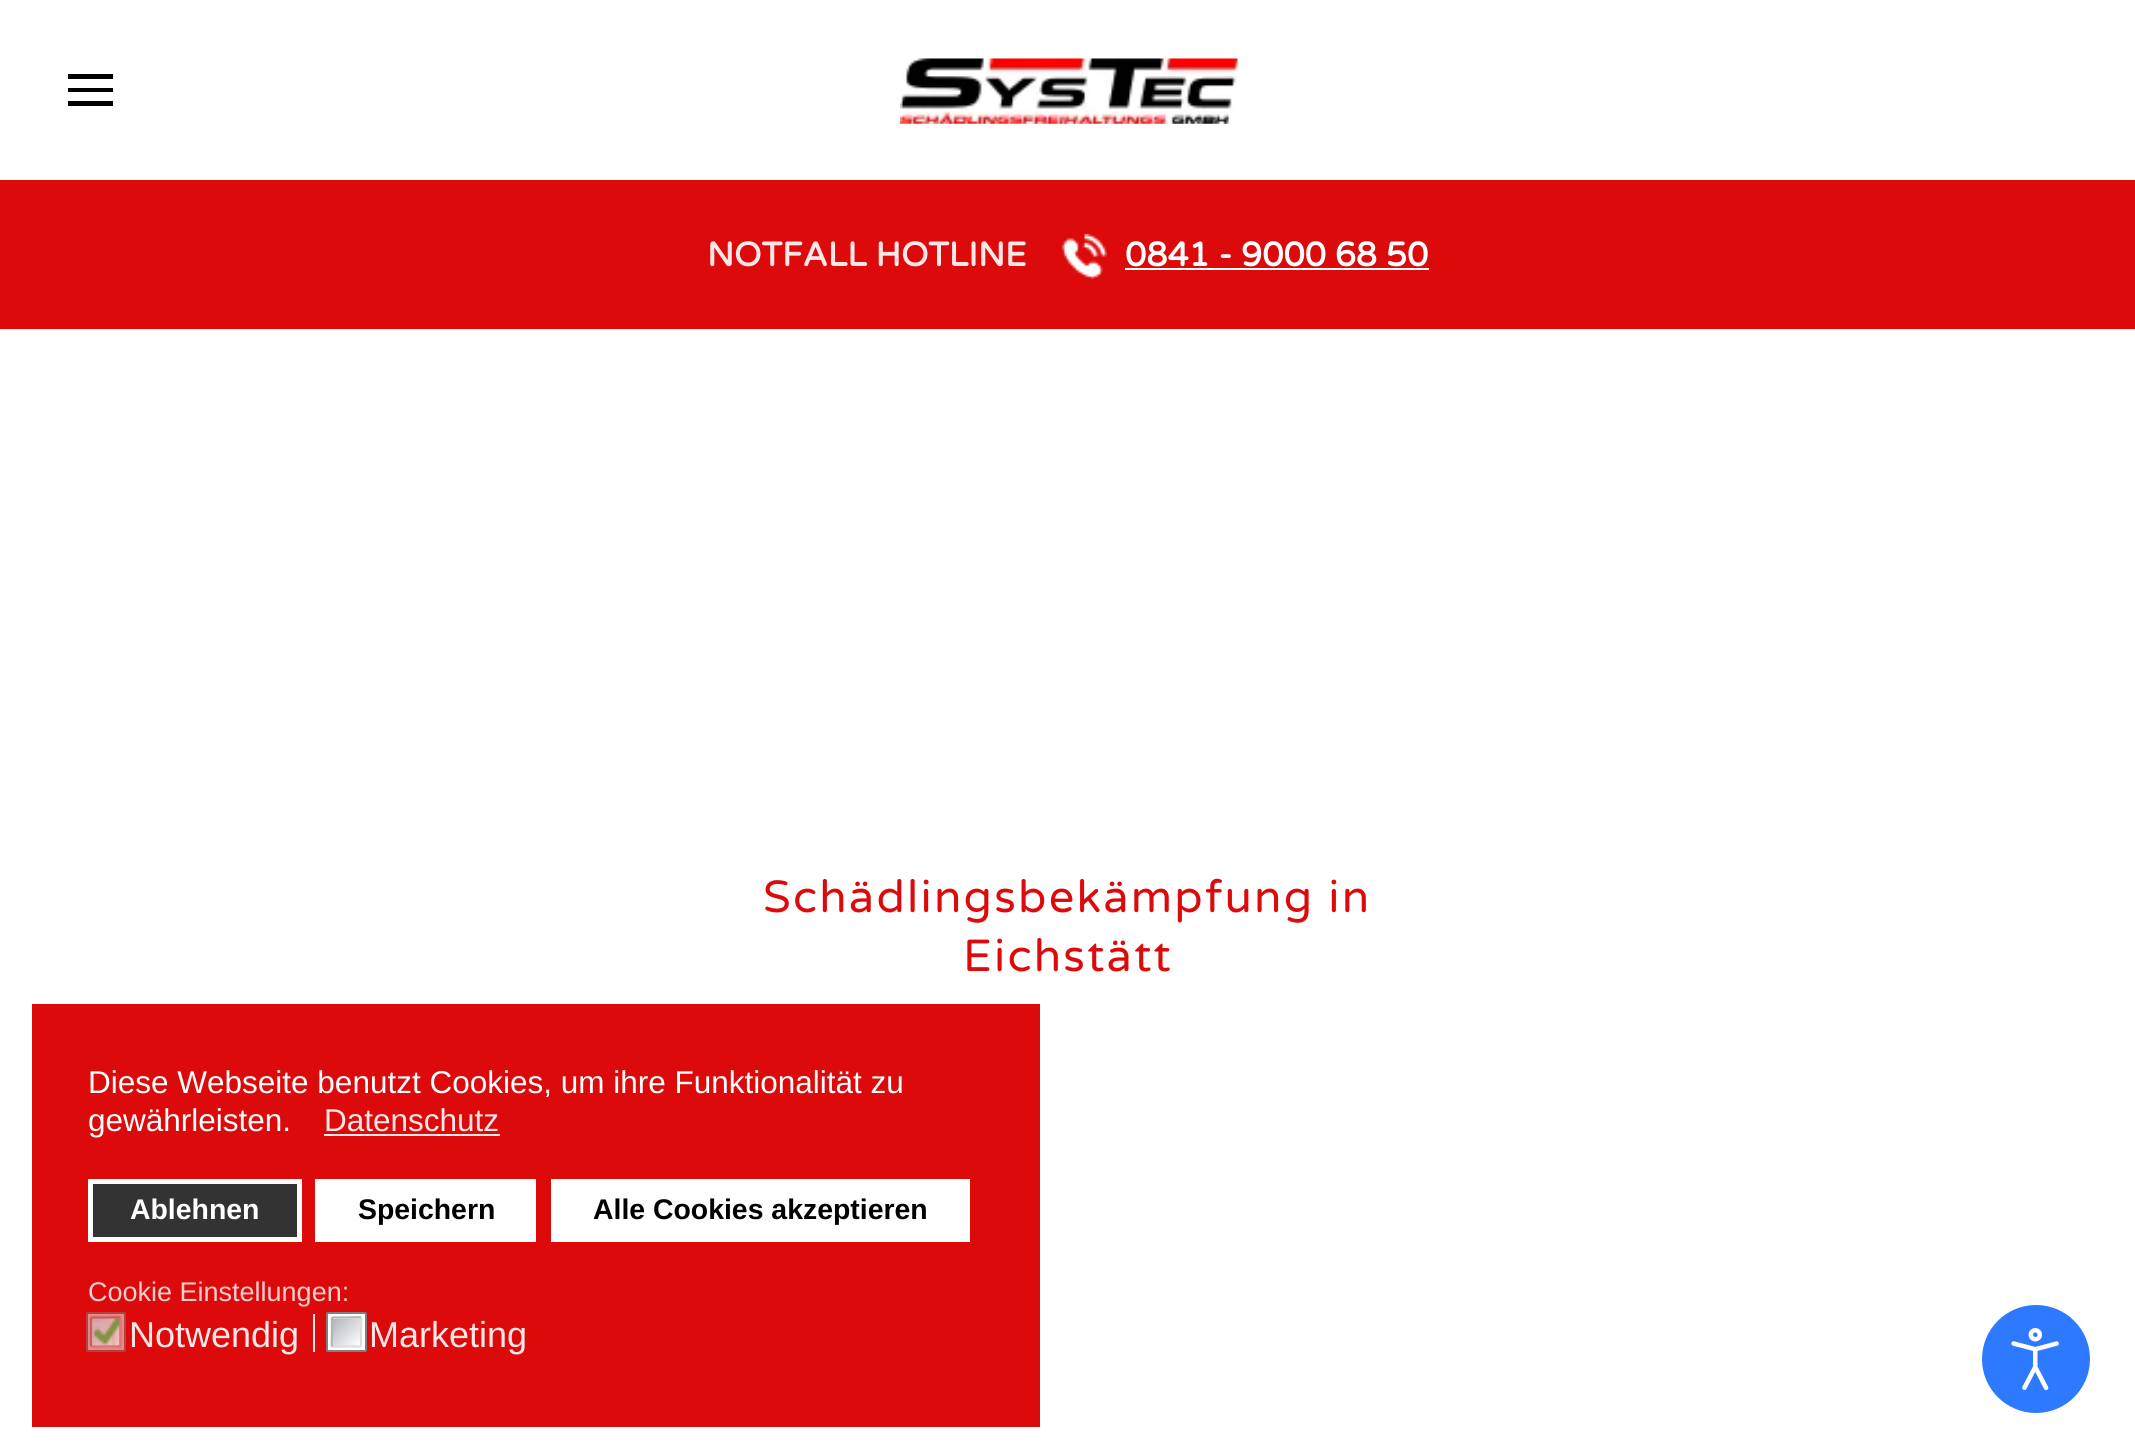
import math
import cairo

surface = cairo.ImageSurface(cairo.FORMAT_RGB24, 2135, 1456)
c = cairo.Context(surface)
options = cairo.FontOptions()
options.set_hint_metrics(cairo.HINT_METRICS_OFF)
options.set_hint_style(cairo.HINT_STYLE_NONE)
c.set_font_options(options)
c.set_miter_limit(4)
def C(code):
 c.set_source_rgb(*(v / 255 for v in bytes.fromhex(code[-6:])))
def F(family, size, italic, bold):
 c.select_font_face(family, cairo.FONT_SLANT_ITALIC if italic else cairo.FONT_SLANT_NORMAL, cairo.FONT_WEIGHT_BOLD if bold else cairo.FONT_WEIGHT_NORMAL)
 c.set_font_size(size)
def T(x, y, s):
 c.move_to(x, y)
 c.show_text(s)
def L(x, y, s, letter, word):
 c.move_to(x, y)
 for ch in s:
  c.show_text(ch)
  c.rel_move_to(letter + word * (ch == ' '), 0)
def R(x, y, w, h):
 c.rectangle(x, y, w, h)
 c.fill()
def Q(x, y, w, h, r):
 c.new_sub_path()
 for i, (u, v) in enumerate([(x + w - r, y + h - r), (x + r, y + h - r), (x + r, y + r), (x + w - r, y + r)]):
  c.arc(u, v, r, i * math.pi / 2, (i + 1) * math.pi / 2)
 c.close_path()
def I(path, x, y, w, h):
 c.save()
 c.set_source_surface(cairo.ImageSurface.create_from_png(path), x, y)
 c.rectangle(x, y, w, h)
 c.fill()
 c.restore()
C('ffffff')
c.paint()
C('000000')
R(68,74,45,5)
R(68,88,45,4)
R(68,101,45,5)
I('1.png',900,58,338,66)
C('dc0a0a')
R(0,180,2135,149)
F('Varela Round',33.75,0,1)
C('fce7e7')
T(707,266,'NOTFALL HOTLINE')
I('2.png',1062,234,45,45)
C('ffffff')
T(1125,266,'0841 - 9000 68 50')
R(1125,268,304,2)
F('Varela Round',45,0,0)
C('dc0a0a')
L(763,912,'Schädlingsbekämpfung in',2.25,0)
L(963,971,'Eichstätt',2.25,0)
R(32,1004,1008,423)
F('Liberation Sans',31.5,0,0)
C('ffffff')
T(88,1093,'Diese Webseite benutzt Cookies, um ihre Funktionalität zu')
T(88,1131,'gewährleisten.')
C('fce7e7')
T(324,1131,'Datenschutz')
R(324,1134,176,2)
C('333333')
c.rectangle(90.5,1181.5,209,58)
c.fill_preserve()
C('ffffff')
c.set_line_width(5)
c.stroke()
F('Liberation Sans',28.4,0,1)
T(130,1219,'Ablehnen')
R(315,1179,221,63)
C('000000')
T(358,1219,'Speichern')
C('ffffff')
R(551,1179,419,63)
C('000000')
T(593,1219,'Alle Cookies akzeptieren')
F('Liberation Sans',27,0,0)
C('f8cece')
T(88,1301,'Cookie Einstellungen:')
C('ee8585')
Q(87,1313,38,38,1)
c.fill_preserve()
C('ae4545')
c.set_line_width(2)
c.stroke()
I('3.png',90,1316,32,32)
c.new_path()
c.move_to(120,1317.5)
c.curve_to(121,1318.5,120.5,1330,120.5,1332)
c.line_to(120.5,1341)
c.curve_to(120.5,1347.5,121.5,1346.5,115,1346.5)
c.line_to(106,1346.5)
c.curve_to(104,1346.5,92.5,1347,91.5,1346.5)
C('dc7474')
c.set_line_width(2.2)
c.stroke()
c.new_path()
c.move_to(91.5,1346.5)
c.curve_to(90.5,1345.5,91,1334,91,1332)
c.line_to(91,1323)
c.curve_to(91,1316.5,90,1317.5,97,1317.5)
c.line_to(106,1317.5)
c.curve_to(107.5,1317.5,119,1317,120,1317.5)
C('c85f5f')
c.stroke()
C('fce7e7')
R(313,1314,2,38)
F('Liberation Sans',36,0,0)
T(129,1347,'Notwendig')
C('ffffff')
Q(327,1313,39,38,1)
c.fill_preserve()
C('808080')
c.set_line_width(2)
c.stroke()
gradient = cairo.LinearGradient(333,1319,360,1346)
gradient.add_color_stop_rgba(0,0.694,0.714,0.745,1)
gradient.add_color_stop_rgba(1,1,1,1,1)
c.set_source(gradient)
R(333,1319,27,27)
c.new_path()
c.move_to(361,1317.5)
c.curve_to(361.5,1318.5,361,1330,361,1332)
c.line_to(361,1341)
c.curve_to(361,1347.5,362,1346.5,355.5,1346.5)
c.line_to(346.5,1346.5)
c.curve_to(344.5,1346.5,333,1347,332,1346.5)
C('dcddde')
c.set_line_width(2.2)
c.stroke()
c.new_path()
c.move_to(332,1346.5)
c.curve_to(331.5,1345.5,332,1334,332,1332)
c.line_to(332,1323)
c.curve_to(332,1316.5,331,1317.5,337.5,1317.5)
c.line_to(346.5,1317.5)
c.curve_to(348.5,1317.5,360,1317,361,1317.5)
C('b3b3b3')
c.stroke()
C('fce7e7')
T(369,1347,'Marketing')
C('2d79ff')
c.new_path()
c.arc(2036,1359,54,0,2 * math.pi)
c.fill()
I('4.png',2011,1328,48,63)
surface.write_to_png('o.png')
